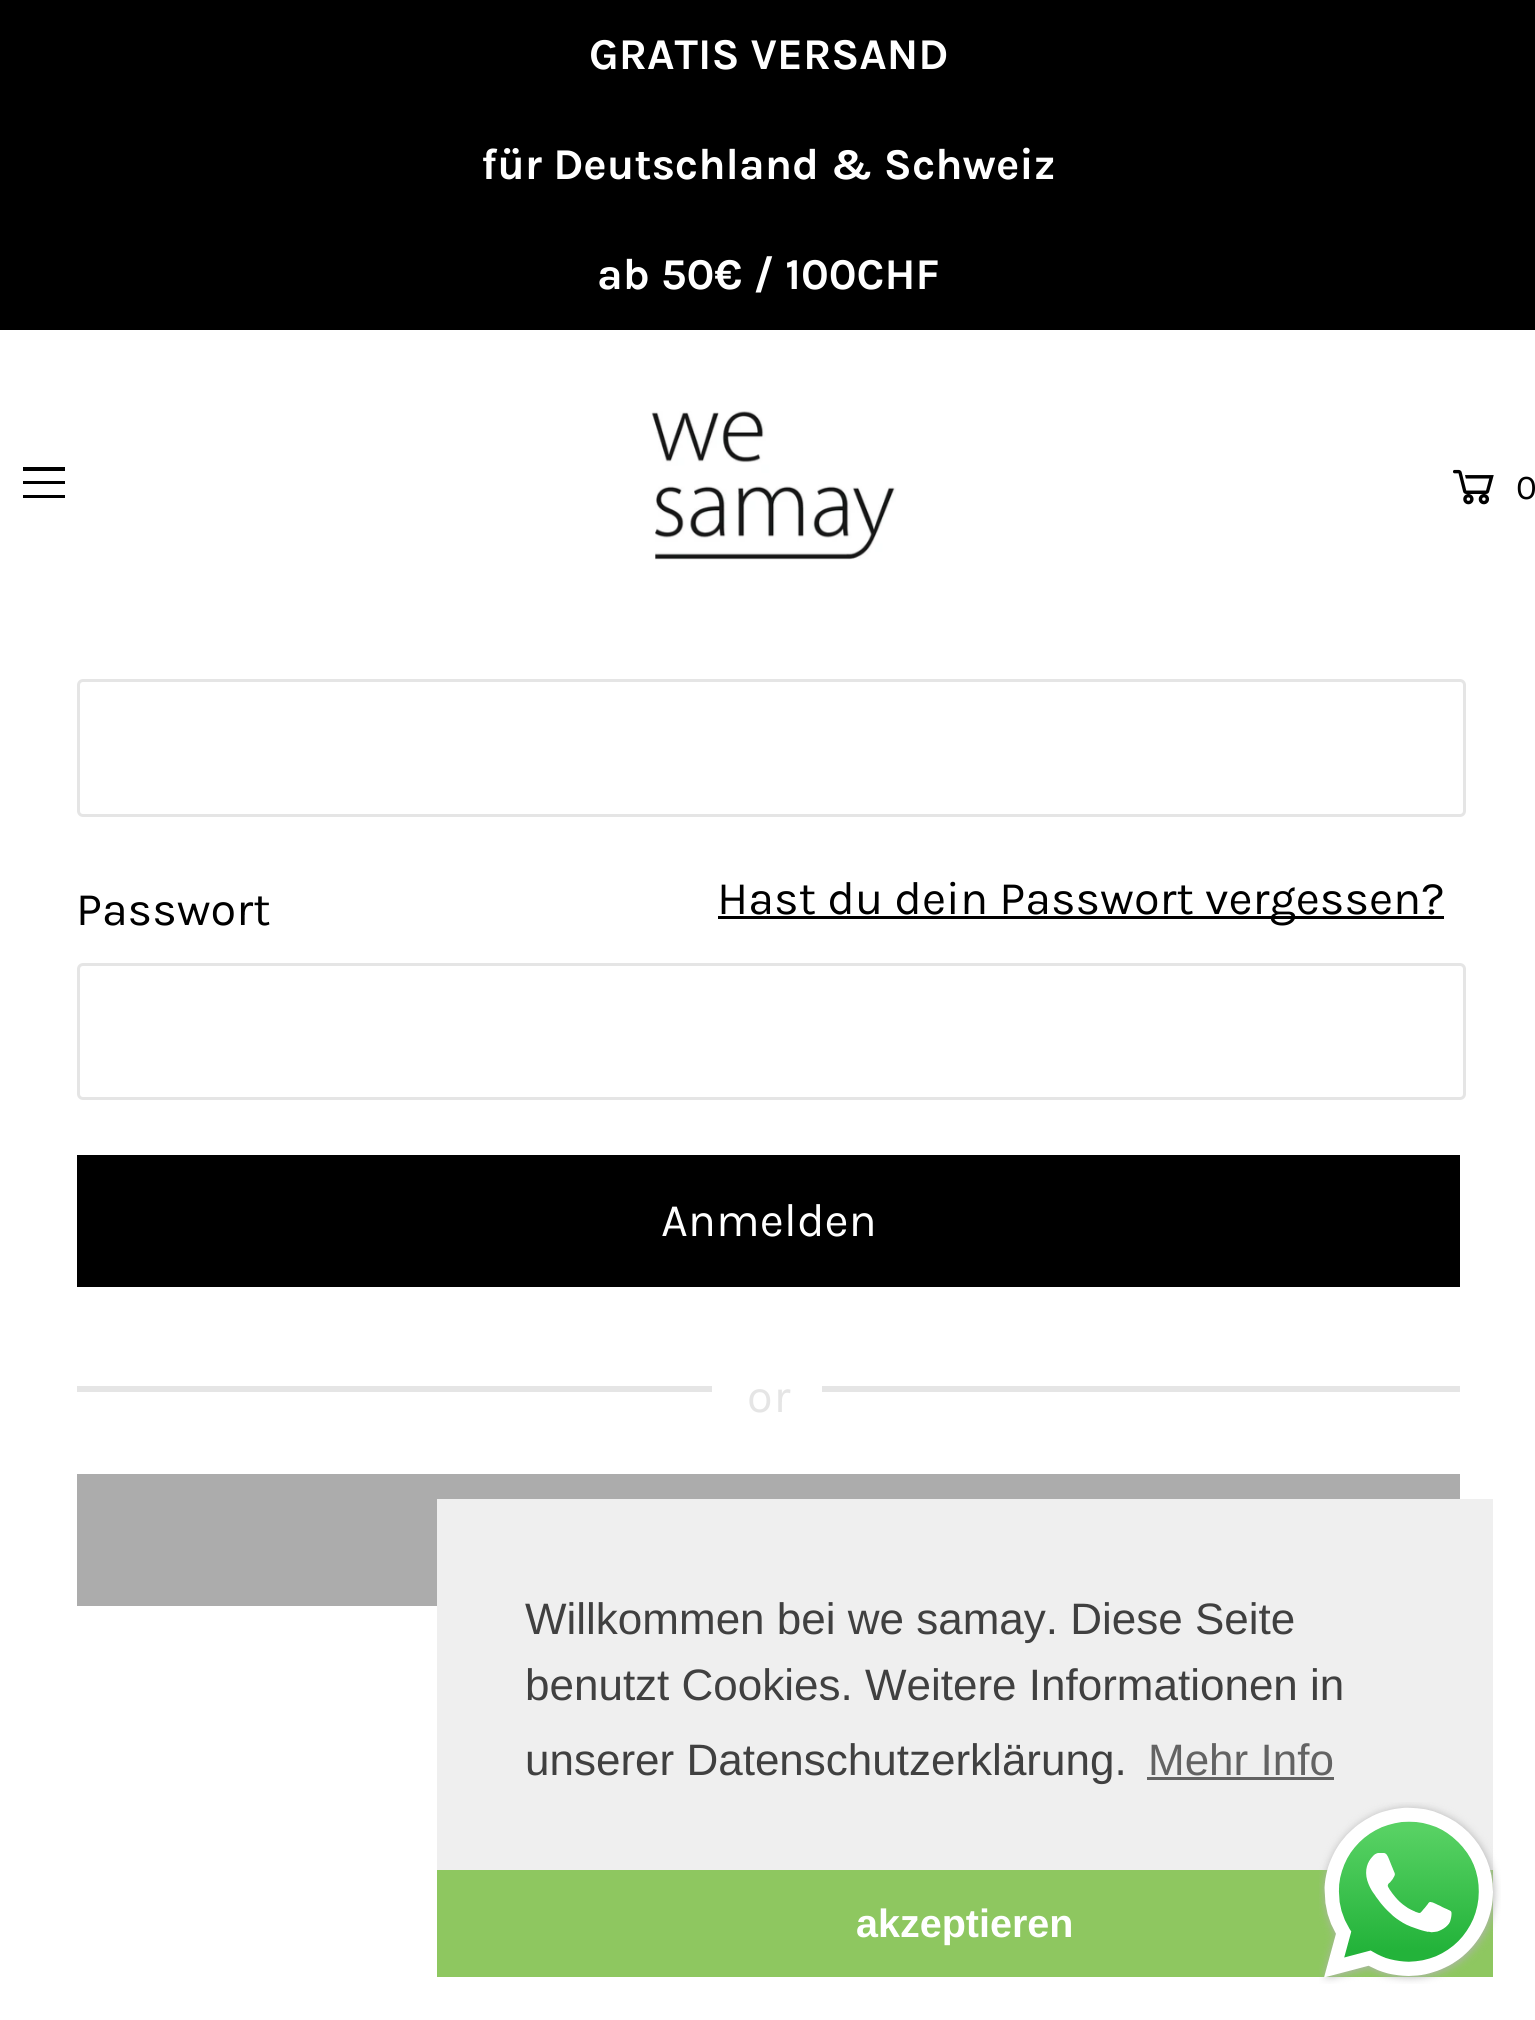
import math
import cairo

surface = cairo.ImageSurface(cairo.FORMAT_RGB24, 1535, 2020)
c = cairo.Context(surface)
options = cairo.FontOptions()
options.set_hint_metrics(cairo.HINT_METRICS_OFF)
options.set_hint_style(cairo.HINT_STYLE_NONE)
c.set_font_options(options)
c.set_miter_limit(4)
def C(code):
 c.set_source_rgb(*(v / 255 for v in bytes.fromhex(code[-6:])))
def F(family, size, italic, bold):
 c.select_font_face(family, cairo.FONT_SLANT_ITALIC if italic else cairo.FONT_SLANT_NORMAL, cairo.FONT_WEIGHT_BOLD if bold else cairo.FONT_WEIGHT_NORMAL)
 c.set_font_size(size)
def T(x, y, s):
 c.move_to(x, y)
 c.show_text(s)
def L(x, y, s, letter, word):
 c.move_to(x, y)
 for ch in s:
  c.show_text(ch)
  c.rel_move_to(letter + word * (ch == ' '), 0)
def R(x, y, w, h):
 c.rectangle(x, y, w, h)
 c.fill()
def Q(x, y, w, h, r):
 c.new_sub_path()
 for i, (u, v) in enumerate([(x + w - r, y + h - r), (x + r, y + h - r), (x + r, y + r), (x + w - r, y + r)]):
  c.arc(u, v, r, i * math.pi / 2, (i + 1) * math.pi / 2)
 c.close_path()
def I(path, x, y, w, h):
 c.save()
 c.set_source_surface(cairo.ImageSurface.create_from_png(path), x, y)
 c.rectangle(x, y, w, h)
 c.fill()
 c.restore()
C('ffffff')
c.paint()
C('000000')
R(0,0,1535,330)
F('Karla',44,0,1)
C('ffffff')
T(589,69,'GRATIS VERSAND')
T(481,179,'für Deutschland & Schweiz')
T(597,289,'ab 50€ / 100CHF')
C('000000')
c.new_path()
c.move_to(23,467)
c.line_to(65,467)
c.line_to(65,471)
c.line_to(23,471)
c.close_path()
c.move_to(23,481)
c.line_to(65,481)
c.line_to(65,484)
c.line_to(23,484)
c.close_path()
c.move_to(23,495)
c.line_to(65,495)
c.line_to(65,498)
c.line_to(23,498)
c.close_path()
c.fill()
I('1.png',651,411,245,149)
I('2.png',1453,469,41,36)
F('Karla',35,0,0)
T(1516,499,'0')
Q(78.5,680.5,1386,135,4.5)
C('e5e5e5')
c.set_line_width(3)
c.stroke()
F('Karla',46.75,0,0)
C('000000')
T(76,925,'Passwort')
R(718,916,726,3)
T(717,914,'Hast du dein Passwort vergessen?')
Q(78.5,964.5,1386,134,4.5)
C('e5e5e5')
c.stroke()
C('000000')
R(77,1155,1383,132)
C('ffffff')
T(661,1236,'Anmelden')
C('e5e5e5')
R(77,1386,1383,6)
C('ffffff')
R(712,1386,110,6)
C('e5e5e5')
L(747,1412,'or',1,0)
C('acacac')
R(77,1474,1383,132)
C('efefef')
R(437,1499,1056,371)
F('Liberation Sans',44,0,0)
C('404040')
T(525,1634,'Willkommen bei we samay. Diese Seite')
T(525,1700,'benutzt Cookies. Weitere Informationen in')
T(525,1775,'unserer Datenschutzerklärung.')
C('636363')
T(1148,1775,'Mehr Info')
R(1147,1777,187,3)
C('8ec760')
R(437,1870,1056,107)
F('Liberation Sans',39.5,0,1)
C('ffffff')
T(856,1937,'akzeptieren')
I('3.png',1319,1802,182,182)
surface.write_to_png('o.png')
